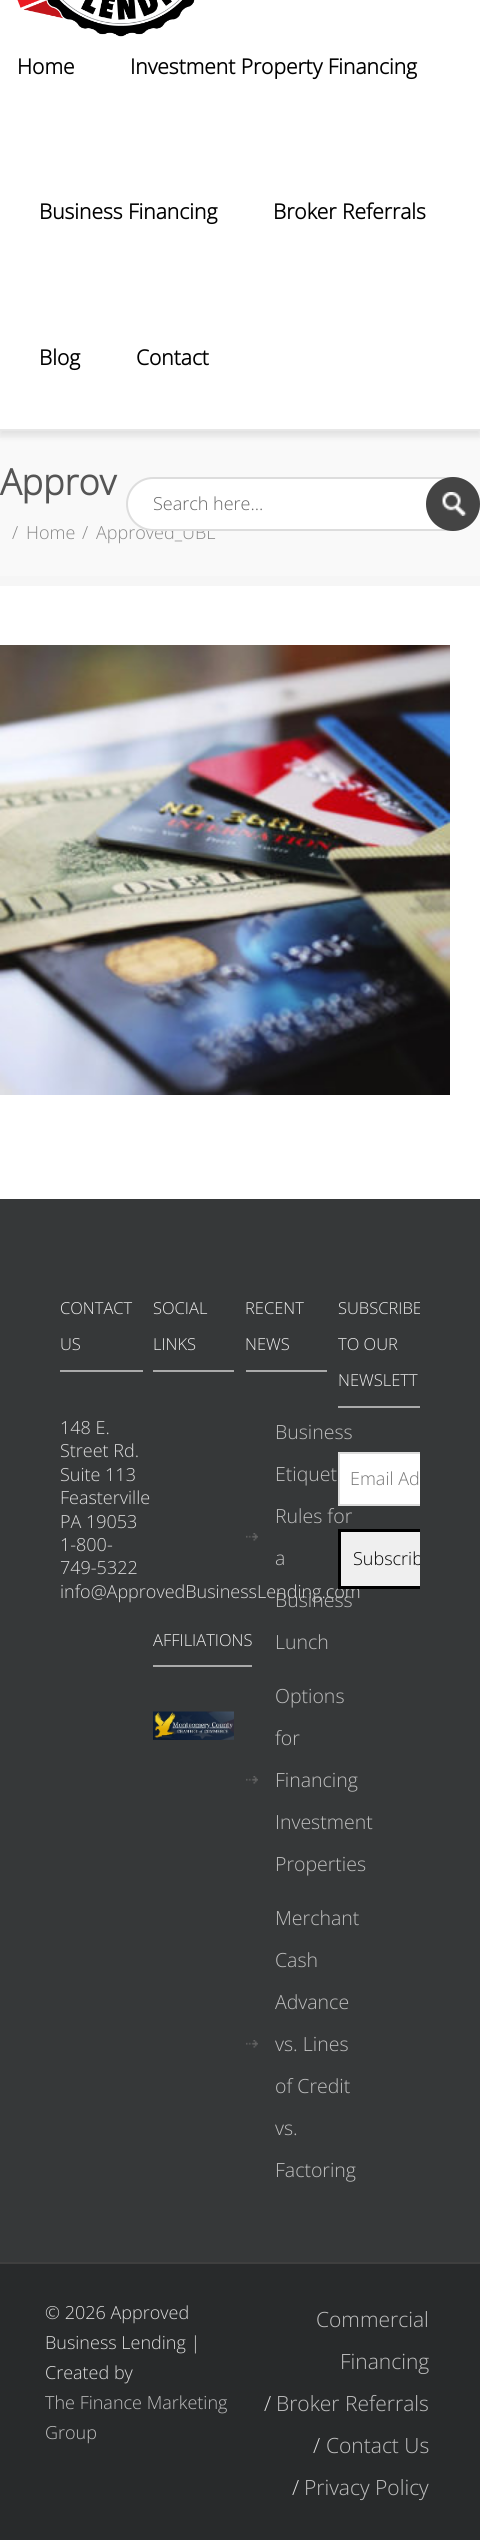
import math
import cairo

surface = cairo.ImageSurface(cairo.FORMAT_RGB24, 480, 2540)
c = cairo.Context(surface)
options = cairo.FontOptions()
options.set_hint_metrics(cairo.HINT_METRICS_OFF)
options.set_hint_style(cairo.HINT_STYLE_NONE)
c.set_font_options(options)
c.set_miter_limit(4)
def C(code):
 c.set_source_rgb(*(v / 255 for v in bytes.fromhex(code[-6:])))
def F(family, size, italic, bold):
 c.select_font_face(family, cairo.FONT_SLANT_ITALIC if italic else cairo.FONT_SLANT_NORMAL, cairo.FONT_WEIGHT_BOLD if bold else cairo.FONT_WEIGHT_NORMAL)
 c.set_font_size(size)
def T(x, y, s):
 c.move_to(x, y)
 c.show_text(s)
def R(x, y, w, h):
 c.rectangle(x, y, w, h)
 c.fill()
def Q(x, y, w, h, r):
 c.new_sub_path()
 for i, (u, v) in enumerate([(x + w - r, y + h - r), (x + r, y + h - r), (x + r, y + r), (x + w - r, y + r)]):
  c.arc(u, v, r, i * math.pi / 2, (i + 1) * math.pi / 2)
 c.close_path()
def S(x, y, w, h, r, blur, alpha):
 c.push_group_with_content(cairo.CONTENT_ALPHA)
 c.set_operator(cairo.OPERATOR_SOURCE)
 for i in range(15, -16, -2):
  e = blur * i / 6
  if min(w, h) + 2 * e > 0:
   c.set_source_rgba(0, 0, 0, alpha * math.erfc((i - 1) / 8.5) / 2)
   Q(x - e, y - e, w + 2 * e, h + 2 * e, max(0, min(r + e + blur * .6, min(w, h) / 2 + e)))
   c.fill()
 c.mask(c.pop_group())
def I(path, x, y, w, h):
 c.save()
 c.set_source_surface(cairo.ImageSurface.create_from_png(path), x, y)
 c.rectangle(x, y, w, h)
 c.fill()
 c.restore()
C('ffffff')
c.paint()
C('f6f6f6')
R(0,431,480,155)
C('f9f9f9')
R(0,438,480,138)
C('000000')
S(0,-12,480,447,0,4,.1)
C('ffffff')
R(0,0,480,429)
C('e8e8e8')
R(0,429,480,2)
I('1.png',17,0,178,37)
F('Open Sans',21,0,1)
C('000000')
T(17,74,'Home')
T(130,74,'Investment Property Financing')
T(39,219,'Business Financing')
T(273,219,'Broker Referrals')
T(39,365,'Blog')
T(136,365,'Contact')
F('Open Sans',36,0,1)
C('555555')
T(0,495,'Approv')
F('Open Sans Light',18,0,0)
C('888888')
T(96,539,'Approved_UBL')
C('ffffff')
Q(127,478,352,52,26)
c.fill_preserve()
C('dddddd')
c.stroke()
C('666666')
T(153,510,'Search here...')
C('444444')
c.new_path()
c.arc(453,504,27,0,2 * math.pi)
c.fill()
I('2.png',441,492,26,24)
C('888888')
T(12,539,'/')
T(26,539,'Home')
T(82,539,'/')
I('3.png',0,645,450,450)
C('363839')
R(0,1199,480,1063)
C('3f3f3f')
R(0,2262,480,2)
C('aaaaaa')
R(60,1370,83,2)
F('Open Sans Light',16.5,0,0)
C('eeeeee')
T(60,1314,'CONTACT')
T(60,1350,'US')
F('Open Sans Light',18,0,0)
C('dddddd')
T(60,1434,'148 E.')
T(60,1457,'Street Rd.')
T(60,1481,'Suite 113')
T(60,1504,'Feasterville')
T(60,1528,'PA 19053')
T(60,1551,'1-800-')
T(60,1574,'749-5322')
T(60,1598,'info@ApprovedBusinessLending.com')
C('aaaaaa')
R(153,1370,81,2)
F('Open Sans Light',16.5,0,0)
C('eeeeee')
T(153,1314,'SOCIAL')
T(153,1350,'LINKS')
C('aaaaaa')
R(153,1665,99,2)
C('eeeeee')
T(153,1646,'AFFILIATIONS')
I('4.png',153,1711,81,29)
C('aaaaaa')
R(246,1370,81,2)
C('eeeeee')
T(245,1314,'RECENT')
T(245,1350,'NEWS')
I('5.png',246,1533,12,8)
F('Open Sans Light',19.5,0,0)
C('bfbfbf')
T(275,1439,'Business')
T(275,1481,'Etiquet')
T(275,1523,'Rules for')
T(275,1565,'a')
T(275,1607,'Business')
T(275,1649,'Lunch')
I('5.png',246,1776,12,8)
T(275,1703,'Options')
T(275,1745,'for')
T(275,1787,'Financing')
T(275,1829,'Investment')
T(275,1871,'Properties')
I('5.png',246,2040,12,8)
T(275,1925,'Merchant')
T(275,1967,'Cash')
T(275,2009,'Advance')
T(275,2051,'vs. Lines')
T(275,2093,'of Credit')
T(275,2135,'vs.')
T(275,2177,'Factoring')
C('aaaaaa')
R(338,1406,82,2)
c.save()
c.rectangle(60,1289,360,973)
c.clip()
F('Open Sans Light',16.5,0,0)
C('eeeeee')
T(338,1314,'SUBSCRIBE')
c.restore()
F('Open Sans Light',16.5,0,0)
C('eeeeee')
T(338,1350,'TO OUR')
T(338,1386,'NEWSLETT')
C('ffffff')
R(340,1454,80,50)
c.save()
c.rectangle(60,1289,360,973)
c.clip()
c.rectangle(339,1453,100,52)
C('dddddd')
c.stroke()
c.restore()
F('Open Sans Light',18,0,0)
C('757575')
T(350,1485,'Email Ad')
C('efefef')
R(341,1532,79,54)
c.save()
c.rectangle(60,1289,360,973)
c.clip()
c.rectangle(339.5,1530.5,108,57)
C('000000')
c.set_line_width(3)
c.stroke()
c.restore()
c.save()
c.rectangle(341,1532,79,54)
c.clip()
C('000000')
T(353,1565,'Subscrib')
c.restore()
C('282a2b')
R(0,2264,480,276)
C('dddddd')
T(45,2319,'© 2026 Approved')
T(45,2349,'Business Lending |')
T(45,2379,'Created by')
C('bfbfbf')
T(45,2409,'The Finance Marketing')
T(45,2439,'Group')
F('Open Sans Light',21,0,0)
T(316,2327,'Commercial')
T(340,2369,'Financing')
C('dddddd')
T(264,2411,'/')
C('bfbfbf')
T(276,2411,'Broker Referrals')
C('dddddd')
T(313,2453,'/')
C('bfbfbf')
T(326,2453,'Contact Us')
C('dddddd')
T(292,2495,'/')
C('bfbfbf')
T(304,2495,'Privacy Policy')
surface.write_to_png('o.png')
